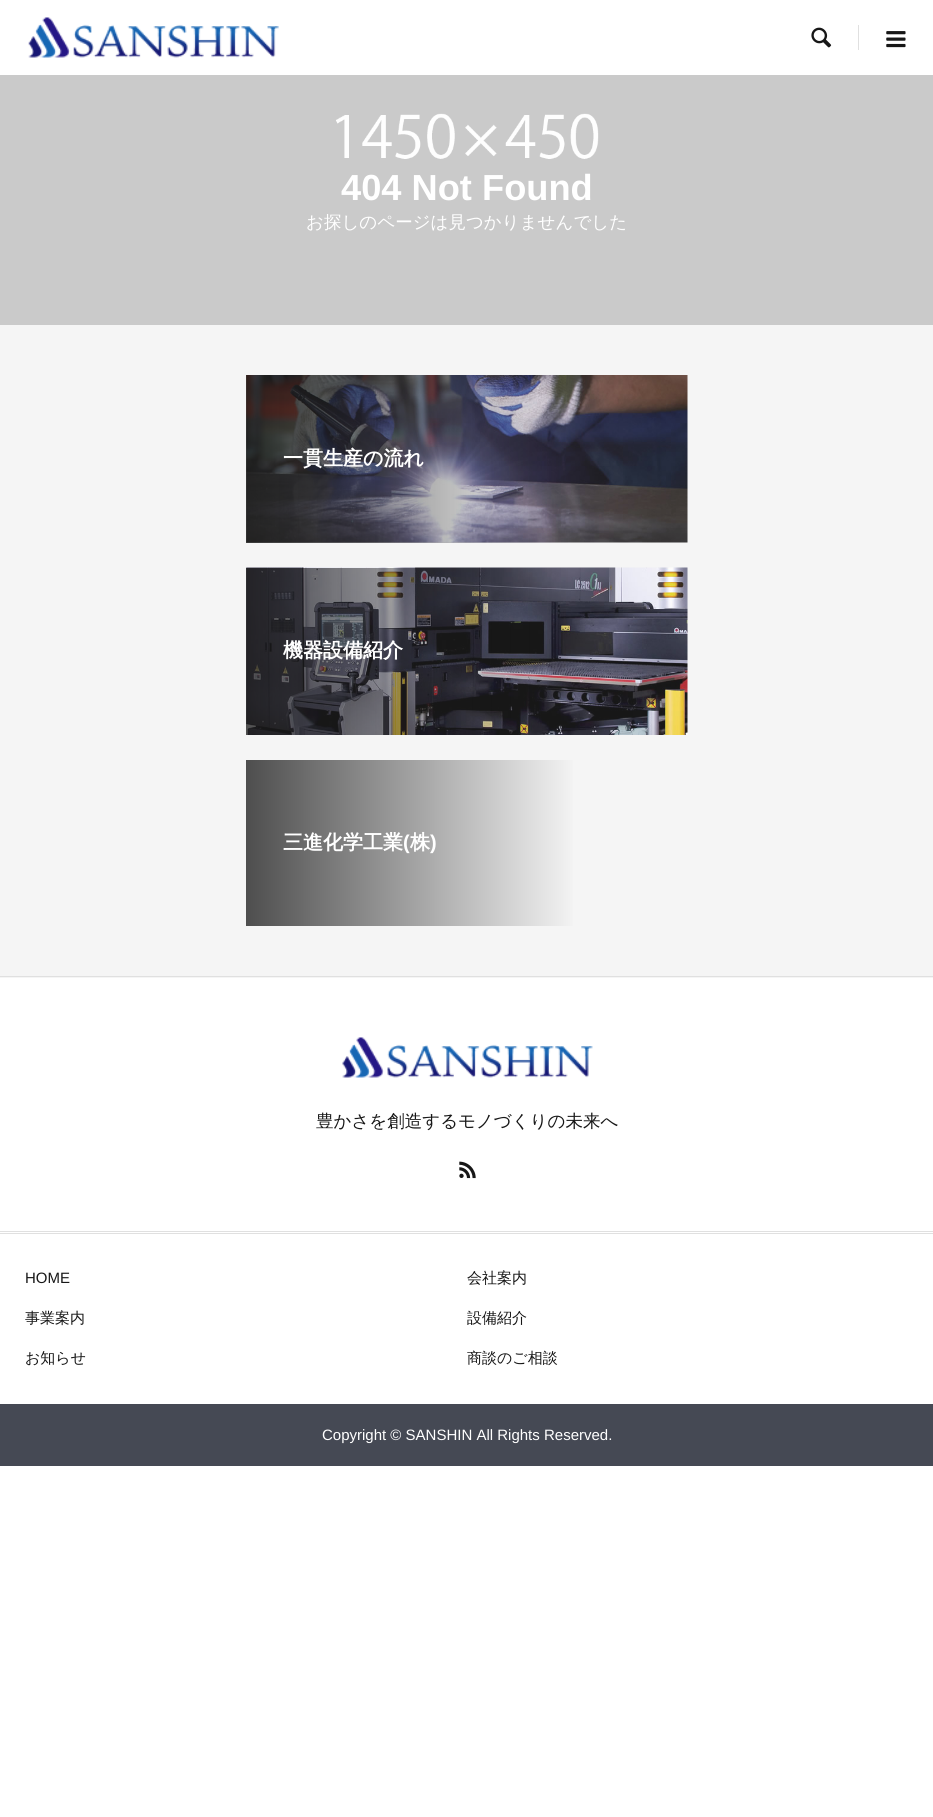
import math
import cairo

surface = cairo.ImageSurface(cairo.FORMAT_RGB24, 933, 1817)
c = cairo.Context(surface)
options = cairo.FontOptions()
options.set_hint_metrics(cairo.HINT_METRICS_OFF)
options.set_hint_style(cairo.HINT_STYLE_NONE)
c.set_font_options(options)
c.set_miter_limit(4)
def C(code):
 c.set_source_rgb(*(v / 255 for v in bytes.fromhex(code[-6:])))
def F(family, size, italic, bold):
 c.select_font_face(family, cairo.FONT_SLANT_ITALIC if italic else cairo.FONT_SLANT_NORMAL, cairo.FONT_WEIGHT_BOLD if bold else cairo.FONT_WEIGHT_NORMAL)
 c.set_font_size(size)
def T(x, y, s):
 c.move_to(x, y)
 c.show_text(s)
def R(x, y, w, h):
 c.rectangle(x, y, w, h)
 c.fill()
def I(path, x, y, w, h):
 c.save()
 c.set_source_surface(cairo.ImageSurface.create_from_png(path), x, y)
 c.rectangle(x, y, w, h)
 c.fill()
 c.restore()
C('ffffff')
c.paint()
I('1.png',28,17,251,41)
I('2.png',811,27,21,21)
C('e0e0e0')
R(858,25,1,25)
I('3.png',886,31,20,17)
I('4.png',0,75,933,250)
F('Liberation Sans',36.25,0,1)
C('ffffff')
T(341,200,'404 Not Found')
F('WenQuanYi Zen Hei Medium',17.5,0,0)
T(306,228,'お探しのページは見つかりませんでした')
C('f5f5f5')
R(0,325,933,653)
C('e0e0e0')
R(0,976,933,1)
I('5.png',246,375,442,168)
gradient = cairo.LinearGradient(246,459,688,459)
gradient.add_color_stop_rgba(0,0.09,0.09,0.09,.75)
gradient.add_color_stop_rgba(.75,0.09,0.09,0.09,0)
c.set_source(gradient)
R(246,375,322,168)
F('WenQuanYi Zen Hei',20,0,1)
C('ffffff')
T(283,465,'一貫生産の流れ')
I('6.png',246,567,442,168)
gradient = cairo.LinearGradient(246,651,688,651)
gradient.add_color_stop_rgba(0,0.09,0.09,0.09,.75)
gradient.add_color_stop_rgba(.75,0.09,0.09,0.09,0)
c.set_source(gradient)
R(246,568,322,167)
C('ffffff')
T(283,657,'機器設備紹介')
gradient = cairo.LinearGradient(246,843,688,843)
gradient.add_color_stop_rgba(0,0.306,0.306,0.306,1)
gradient.add_color_stop_rgba(.75,0.961,0.961,0.961,1)
c.set_source(gradient)
R(246,760,327,166)
C('ffffff')
T(283,849,'三進化学工業')
F('Liberation Sans',20,0,1)
T(403,849,'(')
F('WenQuanYi Zen Hei',20,0,1)
T(410,849,'株')
F('Liberation Sans',20,0,1)
T(430,849,')')
C('e0e0e0')
R(0,1231,933,1)
I('7.png',342,1037,251,41)
F('WenQuanYi Zen Hei Medium',17.5,0,0)
C('171717')
T(316,1127,'豊かさを創造するモノづくりの未来へ')
I('8.png',459,1161,17,18)
C('e0e0e0')
R(0,1233,933,1)
F('Liberation Sans',15,0,0)
C('171717')
T(25,1283,'HOME')
F('WenQuanYi Zen Hei Medium',15,0,0)
T(467,1283,'会社案内')
T(25,1323,'事業案内')
T(467,1323,'設備紹介')
T(25,1363,'お知らせ')
T(467,1363,'商談のご相談')
C('454954')
R(0,1404,933,62)
F('Liberation Sans',15,0,0)
C('ffffff')
T(322,1440,'Copyright © SANSHIN All Rights Reserved.')
surface.write_to_png('o.png')
